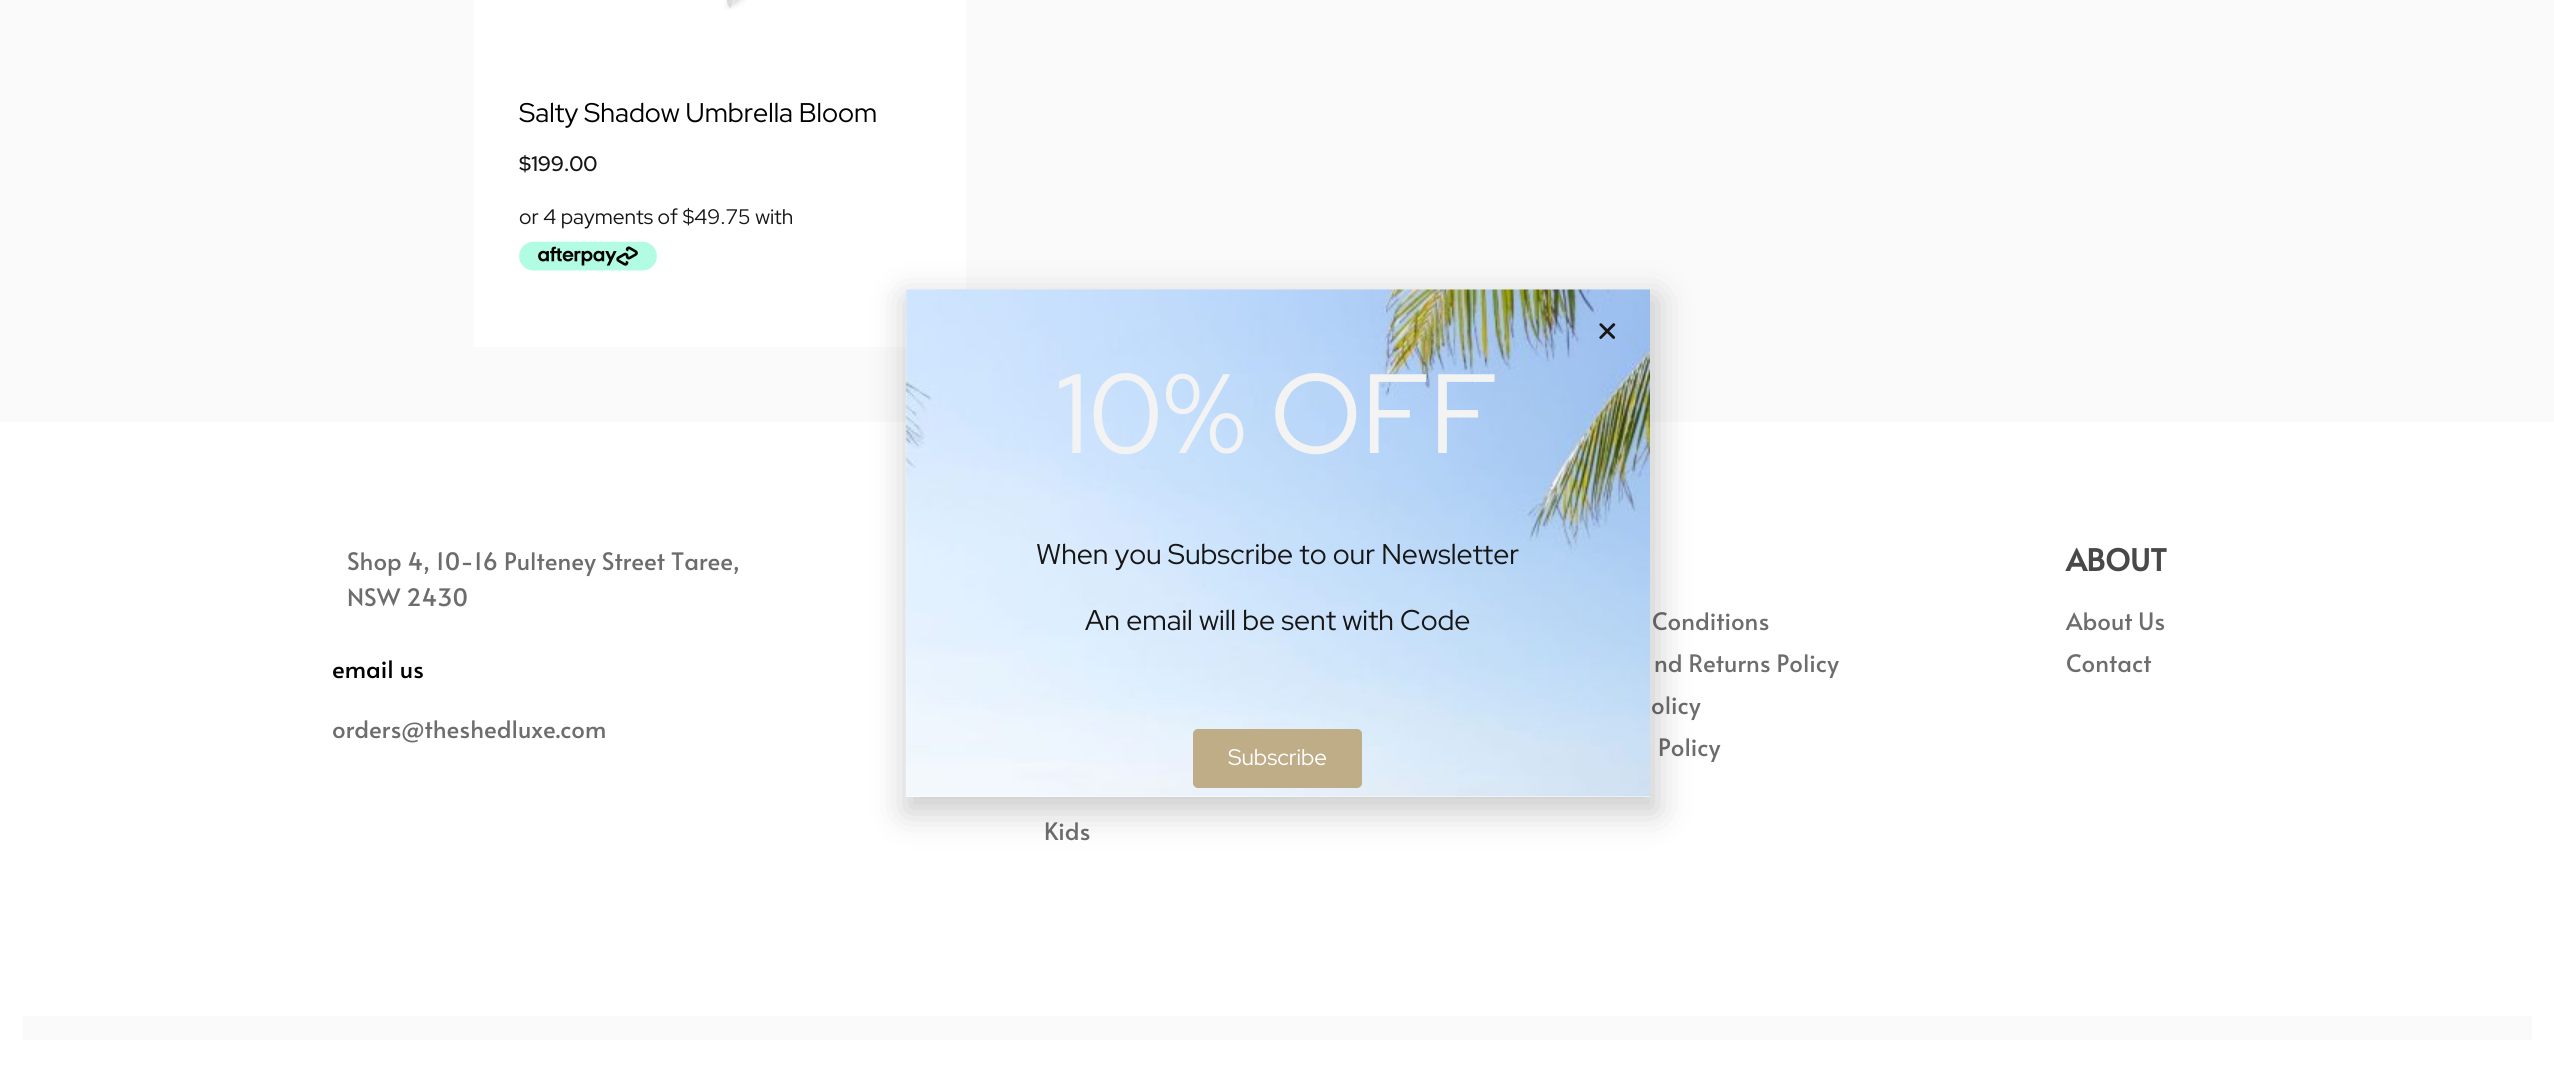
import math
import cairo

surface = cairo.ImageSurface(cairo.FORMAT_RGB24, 2554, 1085)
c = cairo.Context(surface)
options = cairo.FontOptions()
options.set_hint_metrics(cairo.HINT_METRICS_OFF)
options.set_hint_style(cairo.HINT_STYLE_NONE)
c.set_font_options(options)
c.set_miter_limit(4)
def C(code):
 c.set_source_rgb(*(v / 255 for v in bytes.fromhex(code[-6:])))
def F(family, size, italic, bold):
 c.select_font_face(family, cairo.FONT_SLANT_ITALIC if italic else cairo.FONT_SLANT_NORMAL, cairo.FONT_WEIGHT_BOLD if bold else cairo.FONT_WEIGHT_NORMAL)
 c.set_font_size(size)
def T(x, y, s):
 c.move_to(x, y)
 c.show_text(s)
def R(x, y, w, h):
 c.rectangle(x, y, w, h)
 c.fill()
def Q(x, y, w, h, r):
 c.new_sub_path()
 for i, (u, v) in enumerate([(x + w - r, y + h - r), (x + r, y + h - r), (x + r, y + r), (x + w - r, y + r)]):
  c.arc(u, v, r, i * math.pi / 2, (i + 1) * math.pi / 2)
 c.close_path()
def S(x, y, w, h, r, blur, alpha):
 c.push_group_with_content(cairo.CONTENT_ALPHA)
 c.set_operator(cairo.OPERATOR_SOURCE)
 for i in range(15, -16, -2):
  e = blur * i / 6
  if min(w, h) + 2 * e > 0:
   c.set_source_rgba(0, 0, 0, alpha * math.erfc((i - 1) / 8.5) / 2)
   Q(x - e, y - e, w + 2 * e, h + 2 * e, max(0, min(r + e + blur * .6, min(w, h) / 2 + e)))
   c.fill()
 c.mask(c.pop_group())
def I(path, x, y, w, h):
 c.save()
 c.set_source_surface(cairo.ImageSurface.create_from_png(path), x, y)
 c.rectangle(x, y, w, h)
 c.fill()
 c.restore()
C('fafafa')
c.paint()
C('ffffff')
R(474,0,492,347)
I('1.png',724,0,22,10)
F('Red Hat Display',27,0,0)
C('000000')
T(519,122,'Salty Shadow Umbrella Bloom')
F('Red Hat Display SemiBold',21,0,0)
C('171616')
T(519,171,'$199.00')
F('Red Hat Display',21,0,0)
T(519,224,'or 4 payments of $49.75 with')
I('2.png',519,241,138,30)
C('ffffff')
R(0,422,2554,663)
F('Alata',24,0,0)
C('6d6d6d')
T(347,570,'Shop 4, 10-16 Pulteney Street Taree,')
T(347,606,'NSW 2430')
C('000000')
T(332,678,'email us')
C('6d6d6d')
T(332,738,'orders@theshedluxe.com')
T(1652,630,'Conditions')
T(1654,672,'nd Returns Policy')
T(1651,714,'olicy')
T(1658,756,'Policy')
F('Alata',30,0,1)
C('484848')
T(2066,571,'ABOUT')
F('Alata',24,0,0)
C('6d6d6d')
T(2066,630,'About Us')
T(2066,672,'Contact')
T(1044,840,'Kids')
C('fafafa')
R(23,1016,2509,24)
C('000000')
S(905,297,753,516,0,17,.2)
C('ffffff')
R(906,290,744,507)
I('3.png',905,289,745,508)
I('4.png',1599,323,17,16)
F('Red Hat Display',112.5,0,0)
C('f3f3f3')
T(1056,453,'10% OFF')
F('Red Hat Display',28.5,0,0)
C('171616')
T(1036,564,'When you Subscribe to our Newsletter')
T(1085,630,'An email will be sent with Code')
C('bfad87')
Q(1193,729,169,59,5)
c.fill()
F('Red Hat Display',22.5,0,0)
C('ffffff')
T(1228,765,'Subscribe')
surface.write_to_png('o.png')
